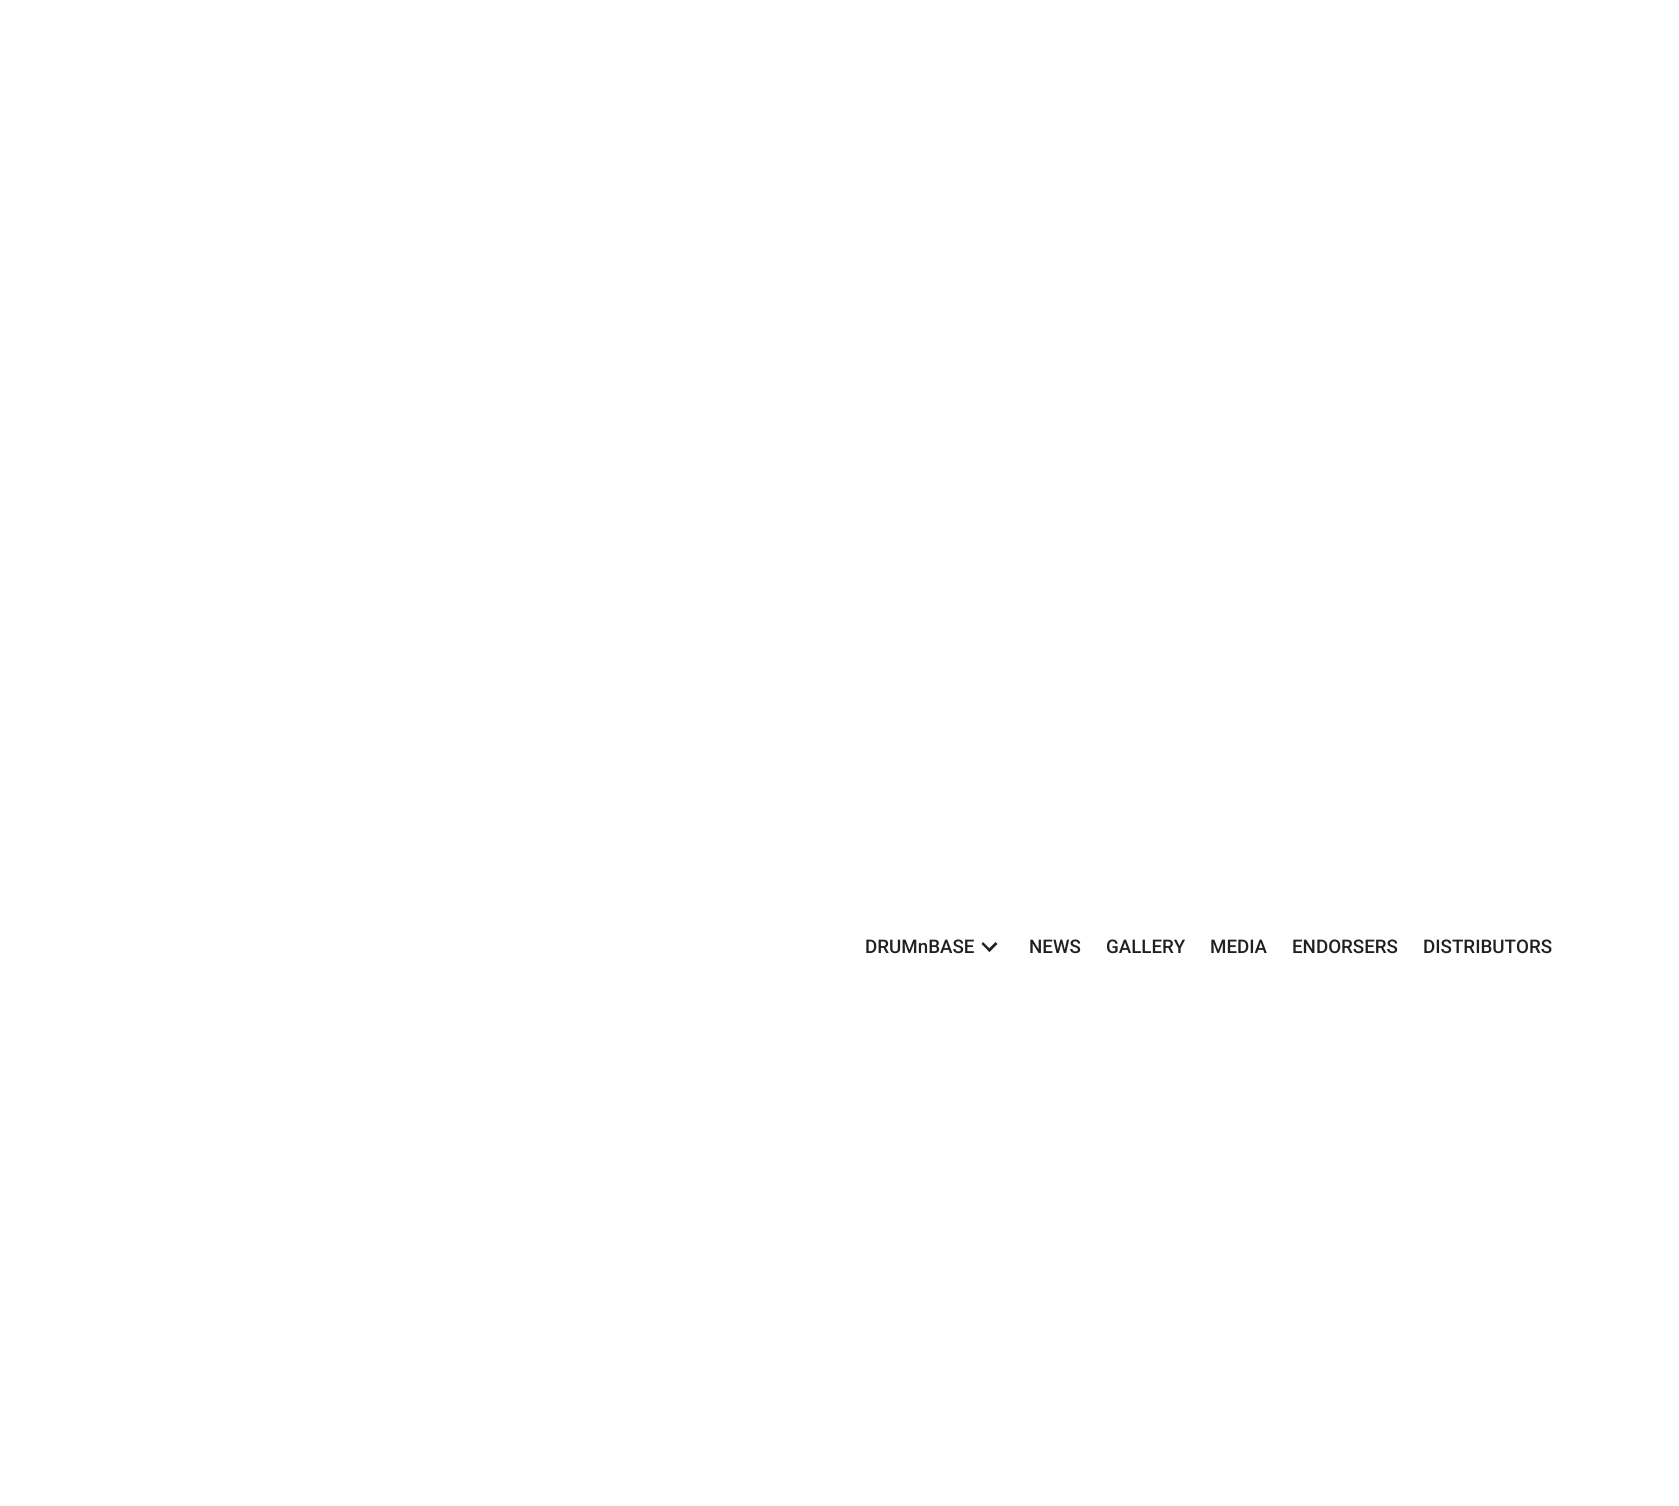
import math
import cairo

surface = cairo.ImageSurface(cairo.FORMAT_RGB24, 1679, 1506)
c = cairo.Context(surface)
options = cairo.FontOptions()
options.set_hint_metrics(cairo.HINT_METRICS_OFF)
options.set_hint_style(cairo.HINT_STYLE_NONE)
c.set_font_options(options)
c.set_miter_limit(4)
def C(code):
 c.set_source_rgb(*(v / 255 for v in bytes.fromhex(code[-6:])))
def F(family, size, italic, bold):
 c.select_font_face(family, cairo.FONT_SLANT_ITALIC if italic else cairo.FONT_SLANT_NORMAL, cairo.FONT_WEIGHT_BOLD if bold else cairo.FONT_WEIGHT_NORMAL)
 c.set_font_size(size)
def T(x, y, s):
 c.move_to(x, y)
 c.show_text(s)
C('ffffff')
c.paint()
F('Roboto Medium',18.75,0,0)
C('231f20')
T(865,953,'DRUMnBASE')
c.new_path()
c.move_to(995.5,942)
c.line_to(997.5,944)
c.line_to(989.5,952)
c.line_to(987.5,950)
c.close_path()
c.fill()
c.new_path()
c.move_to(983,942)
c.line_to(991,950)
c.line_to(989.5,952)
c.line_to(981.5,944)
c.close_path()
c.fill()
T(1029,953,'NEWS')
T(1106,953,'GALLERY')
T(1210,953,'MEDIA')
T(1292,953,'ENDORSERS')
T(1423,953,'DISTRIBUTORS')
surface.write_to_png('o.png')
